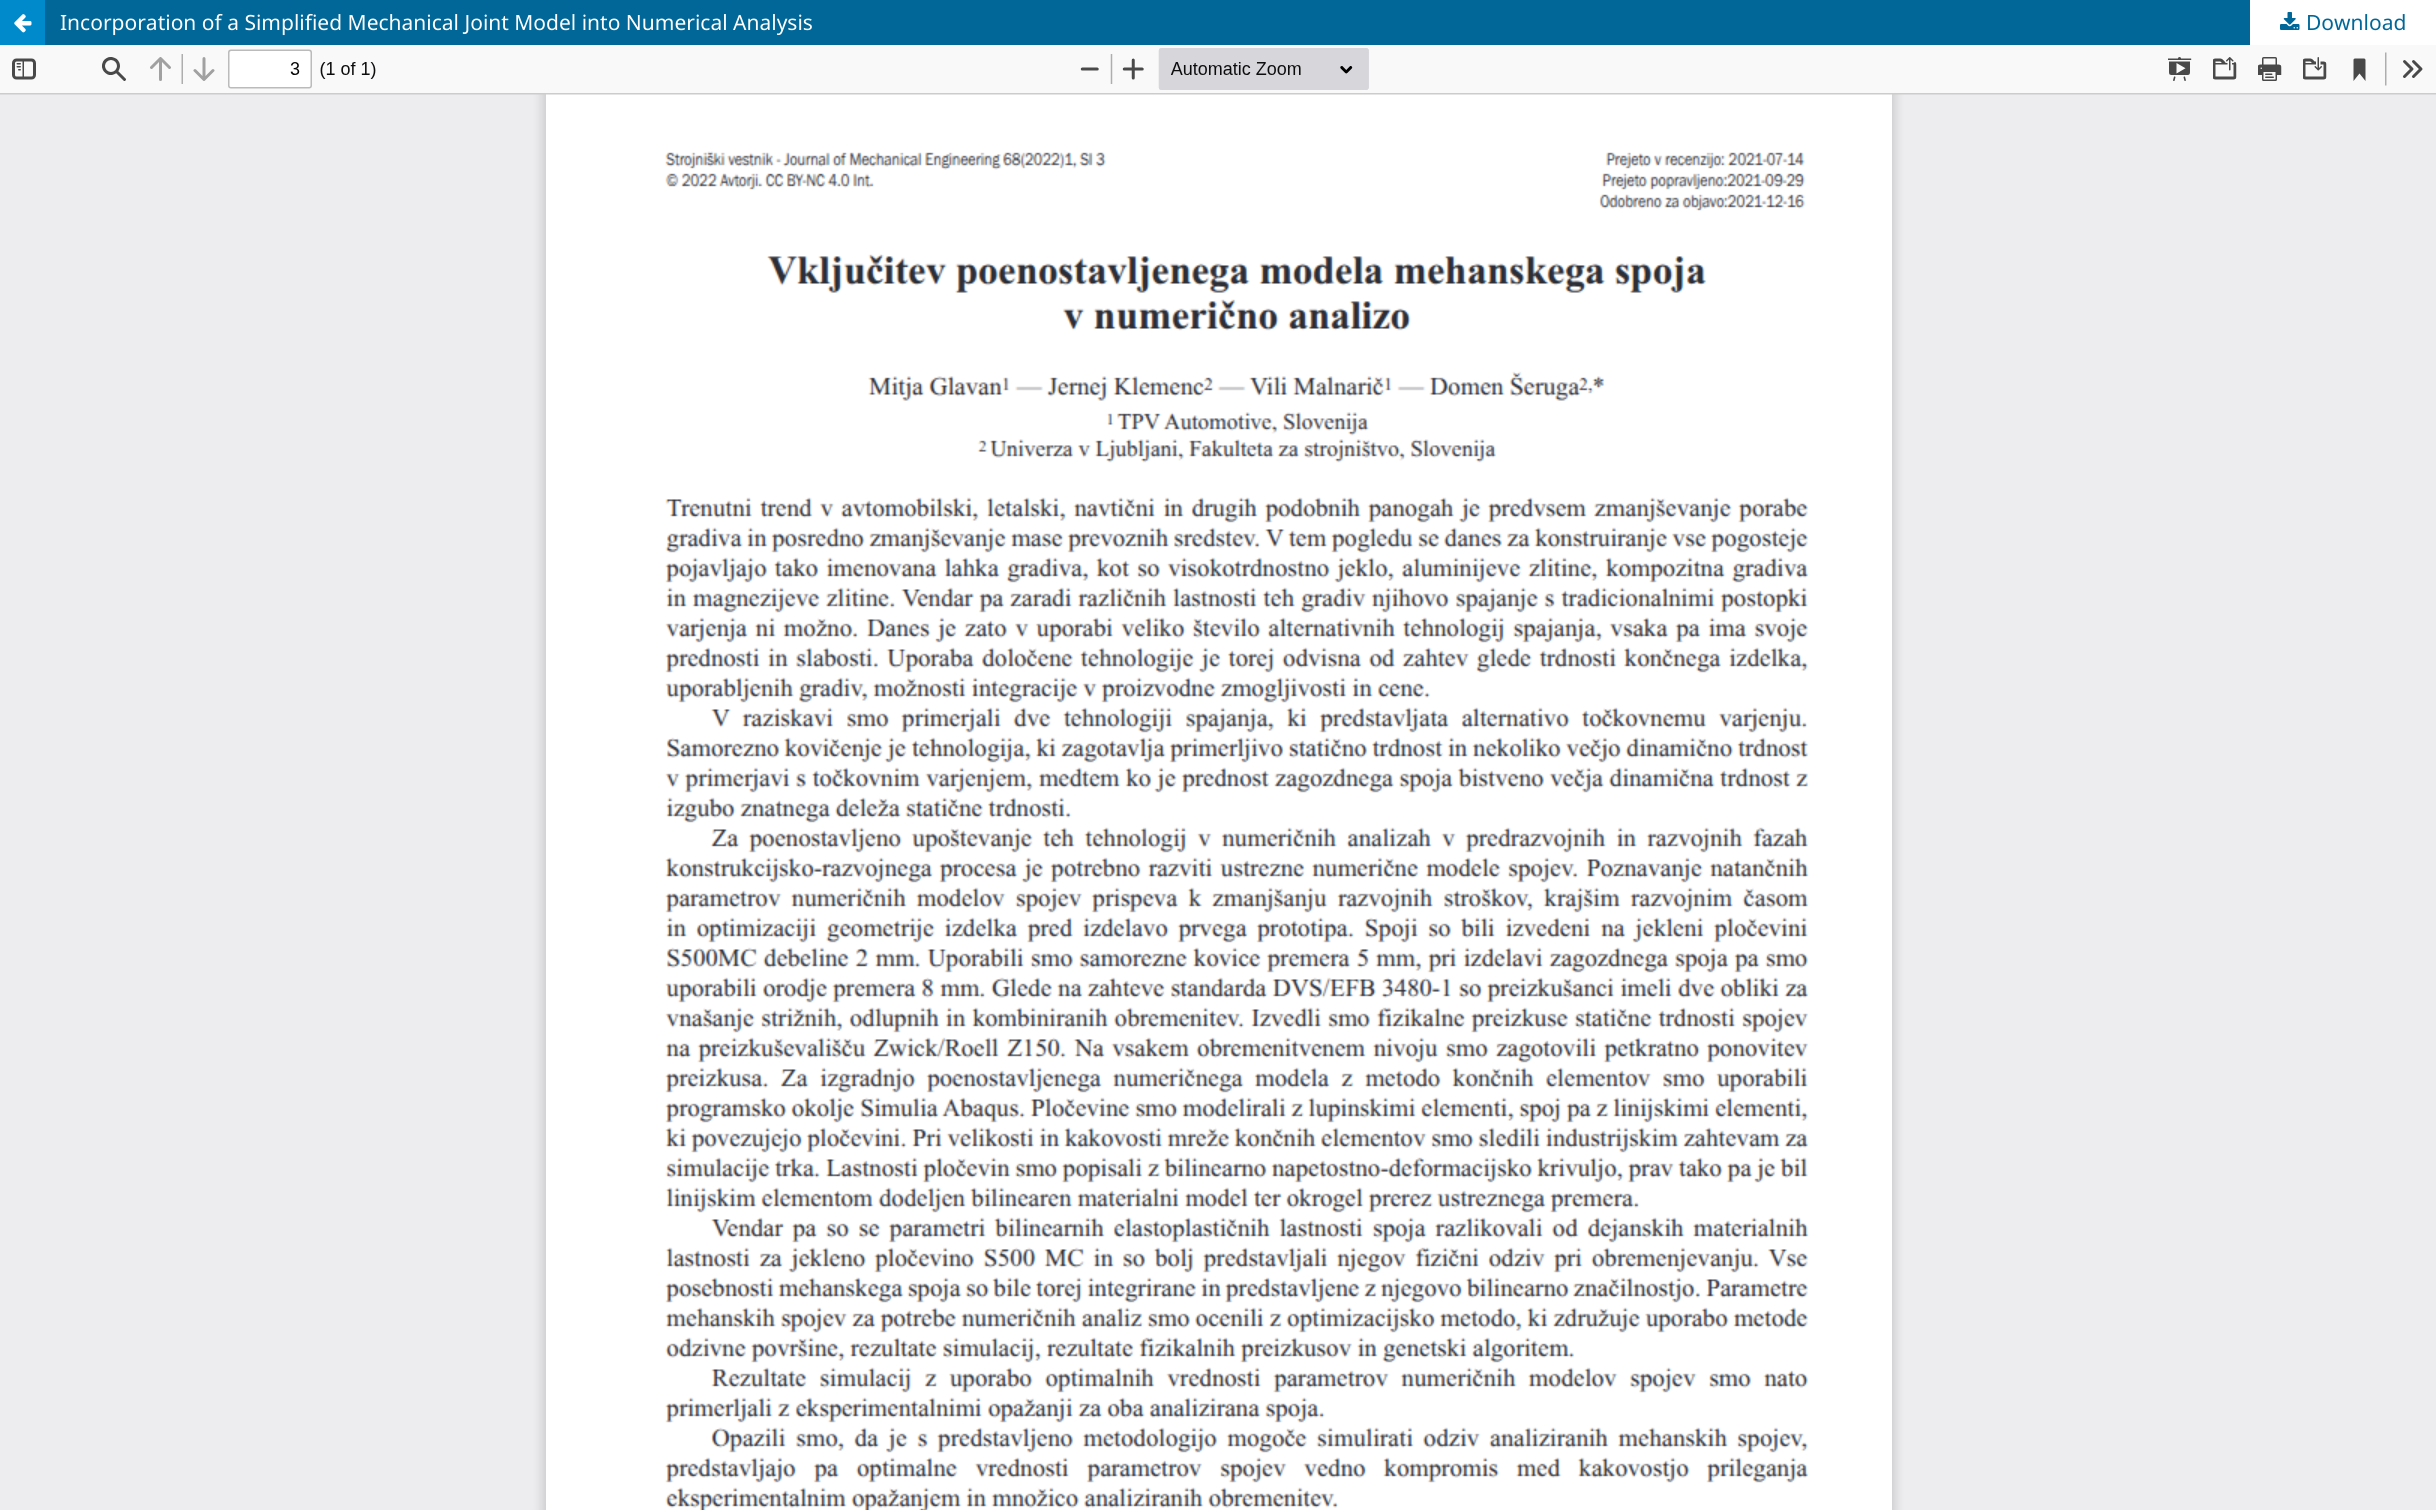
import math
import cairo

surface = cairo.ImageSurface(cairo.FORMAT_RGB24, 2436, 1510)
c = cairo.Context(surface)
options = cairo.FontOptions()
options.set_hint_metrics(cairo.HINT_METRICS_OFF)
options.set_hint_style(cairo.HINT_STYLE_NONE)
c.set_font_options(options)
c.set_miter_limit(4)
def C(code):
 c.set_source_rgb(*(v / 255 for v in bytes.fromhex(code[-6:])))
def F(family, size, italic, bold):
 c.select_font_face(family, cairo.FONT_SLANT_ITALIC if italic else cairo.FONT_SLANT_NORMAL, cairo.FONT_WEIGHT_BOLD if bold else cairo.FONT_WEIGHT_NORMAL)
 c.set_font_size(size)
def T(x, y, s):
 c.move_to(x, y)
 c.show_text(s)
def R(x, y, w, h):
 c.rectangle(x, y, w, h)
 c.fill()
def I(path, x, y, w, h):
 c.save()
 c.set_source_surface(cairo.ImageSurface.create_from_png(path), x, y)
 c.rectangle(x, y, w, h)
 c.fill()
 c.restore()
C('ffffff')
c.paint()
C('006798')
R(45,0,2205,45)
C('008acb')
R(0,0,45,45)
I('1.png',14,14,18,19)
F('Noto Sans',21,0,0)
C('ffffff')
T(60,30,'Incorporation of a Simplified Mechanical Joint Model into Numerical Analysis')
I('2.png',2280,12,20,18)
C('006798')
T(2306,30,'Download')
I('3.png',0,45,2436,1465)
surface.write_to_png('o.png')
